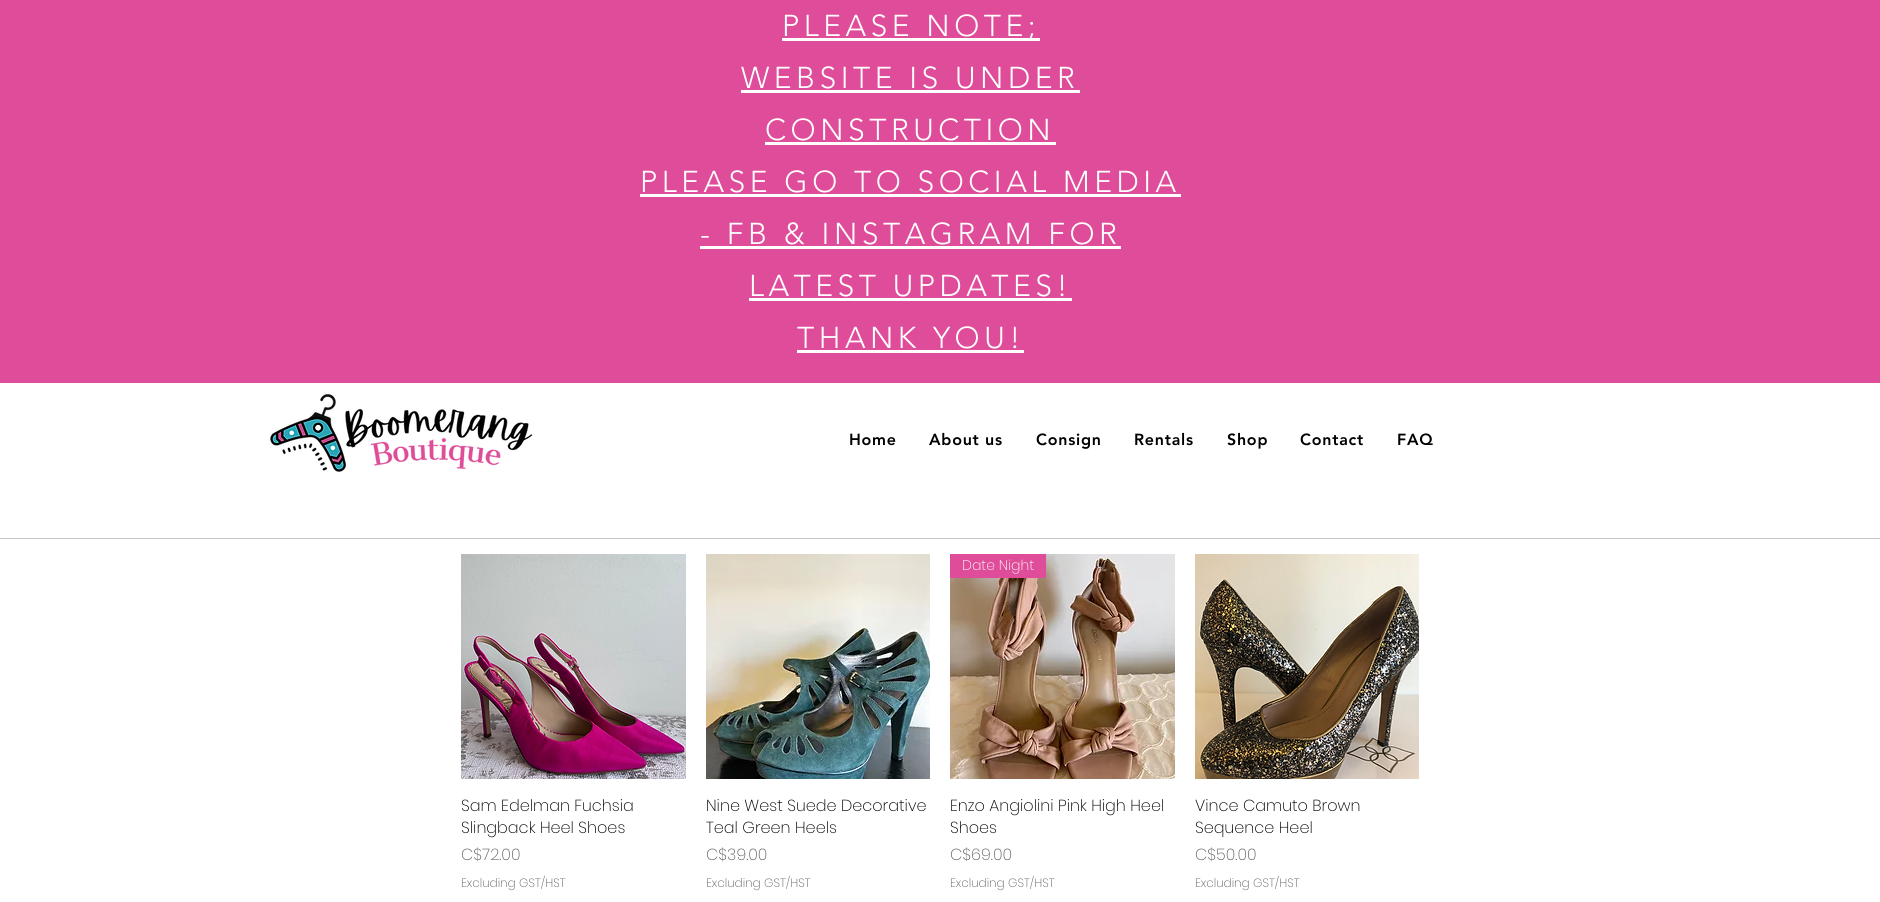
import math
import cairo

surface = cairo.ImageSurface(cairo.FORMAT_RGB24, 1880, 902)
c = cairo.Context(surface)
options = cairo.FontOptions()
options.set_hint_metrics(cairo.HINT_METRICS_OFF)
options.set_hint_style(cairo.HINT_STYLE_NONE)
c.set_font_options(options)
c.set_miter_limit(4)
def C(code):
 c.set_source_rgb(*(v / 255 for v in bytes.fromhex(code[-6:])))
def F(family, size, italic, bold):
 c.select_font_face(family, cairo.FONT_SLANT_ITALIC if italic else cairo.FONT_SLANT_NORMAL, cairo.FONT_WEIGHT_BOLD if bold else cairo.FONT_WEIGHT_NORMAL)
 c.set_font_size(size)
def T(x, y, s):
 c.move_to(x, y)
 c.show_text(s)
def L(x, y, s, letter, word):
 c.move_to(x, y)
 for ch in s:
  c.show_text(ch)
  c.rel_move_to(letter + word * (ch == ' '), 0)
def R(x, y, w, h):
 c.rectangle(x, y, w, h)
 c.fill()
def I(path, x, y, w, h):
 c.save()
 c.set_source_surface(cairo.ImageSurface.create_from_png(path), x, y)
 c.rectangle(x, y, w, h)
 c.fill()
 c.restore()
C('ffffff')
c.paint()
C('df4c9a')
R(0,0,1880,383)
C('ffffff')
R(782,38,258,3)
F('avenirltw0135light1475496 Light',30,0,0)
L(782,36,'PLEASE NOTE;',4.5,0)
L(741,88,'WEBSITE IS UNDER',4.5,0)
R(741,90,339,3)
L(765,140,'CONSTRUCTION',4.5,0)
R(765,142,291,3)
L(640,192,'PLEASE GO TO SOCIAL MEDIA',4.5,0)
R(640,194,541,3)
L(700,244,'- FB & INSTAGRAM FOR',4.5,0)
R(700,246,421,3)
L(749,296,'LATEST UPDATES!',4.5,0)
R(749,298,323,3)
L(797,348,'THANK YOU!',4.5,0)
R(797,350,227,3)
I('1.png',270,394,263,78)
F('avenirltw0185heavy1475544 Black',16,0,0)
C('000000')
L(849,445,'Home',.75,0)
L(929,445,'About us',.75,0)
L(1036,445,'Consign',.75,0)
L(1134,445,'Rentals',.75,0)
L(1227,445,'Shop',.75,0)
L(1300,445,'Contact',.75,0)
L(1397,445,'FAQ',.75,0)
C('c9c4be')
R(0,538,1880,1)
I('2.png',461,554,225,225)
F('Poppins ExtraLight',16,0,0)
C('000000')
T(461,811,'Sam Edelman Fuchsia')
T(461,833,'Slingback Heel Shoes')
C('616161')
T(461,860,'C$72.00')
F('Poppins ExtraLight',12,0,0)
T(461,887,'Excluding GST/HST')
I('3.png',706,554,224,225)
F('Poppins ExtraLight',16,0,0)
C('000000')
T(706,811,'Nine West Suede Decorative')
T(706,833,'Teal Green Heels')
C('616161')
T(706,860,'C$39.00')
F('Poppins ExtraLight',12,0,0)
T(706,887,'Excluding GST/HST')
I('4.png',950,554,225,225)
C('df4c9a')
R(950,554,96,24)
F('Poppins ExtraLight',14,0,0)
C('ffffff')
T(962,570,'Date Night')
F('Poppins ExtraLight',16,0,0)
C('000000')
T(950,811,'Enzo Angiolini Pink High Heel')
T(950,833,'Shoes')
C('616161')
T(950,860,'C$69.00')
F('Poppins ExtraLight',12,0,0)
T(950,887,'Excluding GST/HST')
I('5.png',1195,554,224,225)
F('Poppins ExtraLight',16,0,0)
C('000000')
T(1195,811,'Vince Camuto Brown')
T(1195,833,'Sequence Heel')
C('616161')
T(1195,860,'C$50.00')
F('Poppins ExtraLight',12,0,0)
T(1195,887,'Excluding GST/HST')
surface.write_to_png('o.png')
